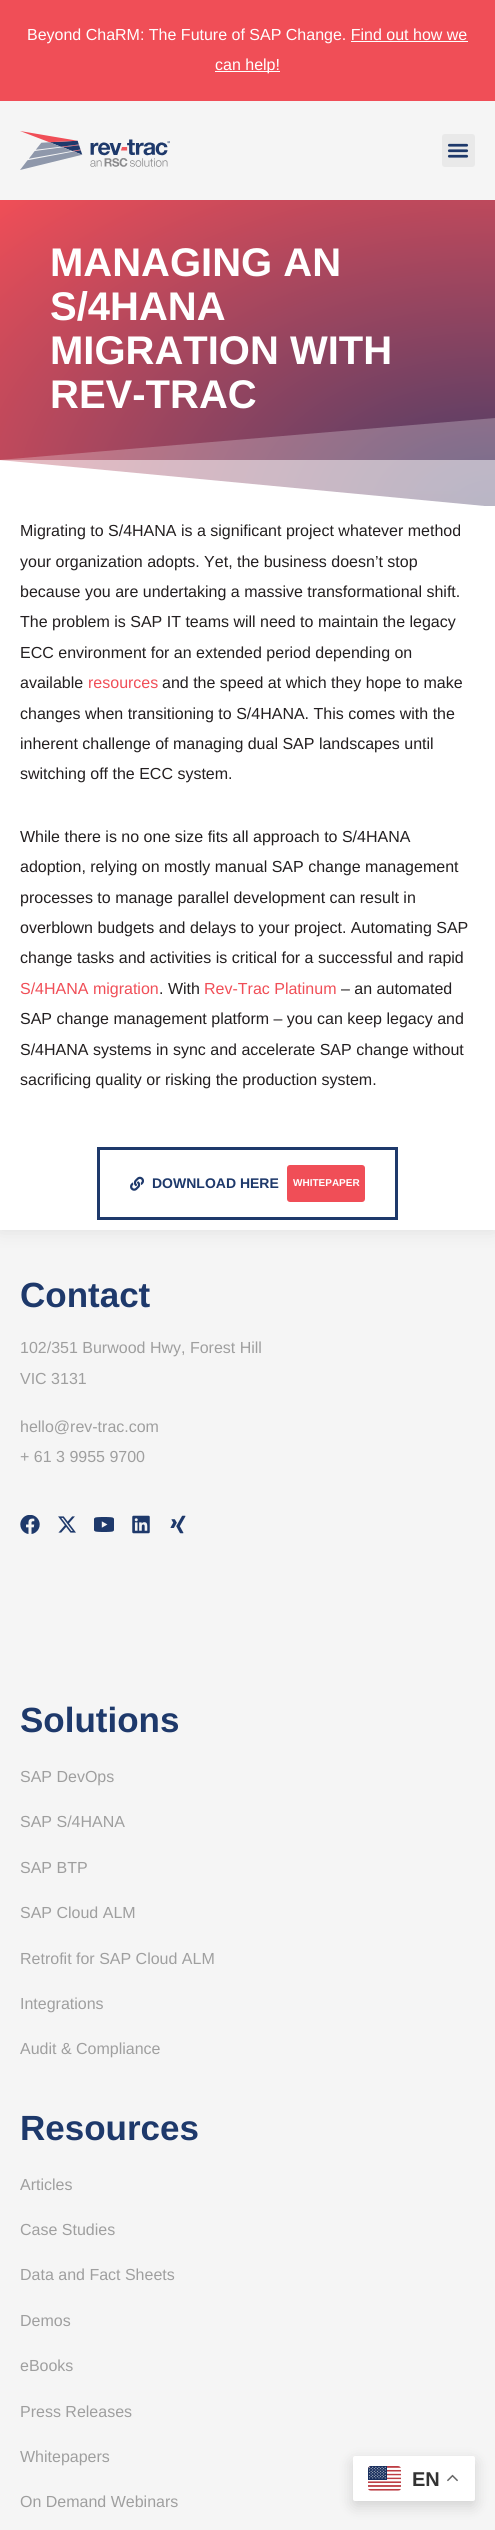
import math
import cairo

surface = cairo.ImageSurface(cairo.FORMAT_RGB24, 495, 2530)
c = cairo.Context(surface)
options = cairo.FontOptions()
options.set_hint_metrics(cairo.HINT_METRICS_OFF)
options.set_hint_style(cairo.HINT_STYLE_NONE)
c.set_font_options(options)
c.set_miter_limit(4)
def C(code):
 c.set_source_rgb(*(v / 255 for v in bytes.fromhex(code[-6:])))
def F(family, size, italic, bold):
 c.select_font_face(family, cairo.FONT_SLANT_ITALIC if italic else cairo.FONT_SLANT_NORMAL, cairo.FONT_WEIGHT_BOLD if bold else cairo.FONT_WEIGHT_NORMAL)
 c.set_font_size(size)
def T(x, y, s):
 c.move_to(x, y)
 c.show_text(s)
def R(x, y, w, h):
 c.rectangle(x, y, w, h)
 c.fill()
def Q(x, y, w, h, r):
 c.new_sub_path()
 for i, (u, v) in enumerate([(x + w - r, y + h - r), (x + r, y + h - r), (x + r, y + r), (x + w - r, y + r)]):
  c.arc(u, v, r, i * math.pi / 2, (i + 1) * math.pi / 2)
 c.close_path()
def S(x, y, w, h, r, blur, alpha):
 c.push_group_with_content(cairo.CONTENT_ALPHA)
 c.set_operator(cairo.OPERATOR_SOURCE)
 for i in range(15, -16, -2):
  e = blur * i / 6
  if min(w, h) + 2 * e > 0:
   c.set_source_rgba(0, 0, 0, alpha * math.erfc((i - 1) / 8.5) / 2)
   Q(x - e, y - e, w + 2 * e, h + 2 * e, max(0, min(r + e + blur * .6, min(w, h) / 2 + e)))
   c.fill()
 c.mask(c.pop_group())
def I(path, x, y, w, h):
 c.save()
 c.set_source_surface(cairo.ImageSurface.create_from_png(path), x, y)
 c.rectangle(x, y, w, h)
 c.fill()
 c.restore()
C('f5f5f5')
c.paint()
C('f04e57')
R(0,0,495,101)
F('Liberation Sans',16,0,0)
C('ffffff')
T(27,40,'Beyond ChaRM: The Future of SAP Change. Find out how we')
R(215,71,65,1)
T(215,70,'can help!')
R(351,41,117,1)
I('1.png',20,131,150,39)
C('e9e9e9')
Q(442,134,33,33,3)
c.fill()
I('2.png',447,143,22,15)
gradient = cairo.RadialGradient(0,0,0,0,0,1)
gradient.set_matrix(cairo.Matrix(1 / 700, 0, 0, 1 / 433, -1 * 495 / 700, -1 * 506 / 433))
gradient.add_color_stop_rgba(.03,0.282,0.239,0.404,1)
gradient.add_color_stop_rgba(1,0.941,0.306,0.341,1)
c.set_source(gradient)
R(0,200,495,306)
F('Liberation Sans',40,0,1)
C('ffffff')
T(50,276,'MANAGING AN')
T(50,320,'S/4HANA')
T(50,364,'MIGRATION WITH')
T(50,408,'REV-TRAC')
C('000000')
S(0,506,495,724,0,10,.09)
C('ffffff')
R(0,506,495,724)
c.new_path()
c.move_to(495,507)
c.line_to(-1,507)
c.line_to(-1,460)
c.close_path()
c.fill()
c.set_source_rgba(1,1,1,0.5)
R(0,460,495,46)
c.set_source_rgba(1,1,1,0.25)
c.new_path()
c.move_to(-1,507)
c.line_to(495,507)
c.line_to(495,418)
c.line_to(-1,460)
c.close_path()
c.fill()
F('Liberation Sans',16,0,0)
C('231f20')
T(20,536,'Migrating to S/4HANA is a significant project whatever method')
T(20,567,'your organization adopts. Yet, the business doesn’t stop')
T(20,597,'because you are undertaking a massive transformational shift.')
T(20,627,'The problem is SAP IT teams will need to maintain the legacy')
T(20,658,'ECC environment for an extended period depending on')
T(20,688,'available')
C('f04e57')
T(88,688,'resources')
C('231f20')
T(162,688,'and the speed at which they hope to make')
T(20,719,'changes when transitioning to S/4HANA. This comes with the')
T(20,749,'inherent challenge of managing dual SAP landscapes until')
T(20,779,'switching off the ECC system.')
T(20,842,'While there is no one size fits all approach to S/4HANA')
T(20,872,'adoption, relying on mostly manual SAP change management')
T(20,903,'processes to manage parallel development can result in')
T(20,933,'overblown budgets and delays to your project. Automating SAP')
T(20,963,'change tasks and activities is critical for a successful and rapid')
C('f04e57')
T(20,994,'S/4HANA migration')
C('231f20')
T(159,994,'. With')
C('f04e57')
T(204,994,'Rev-Trac Platinum')
C('231f20')
T(341,994,'– an automated')
T(20,1024,'SAP change management platform – you can keep legacy and')
T(20,1055,'S/4HANA systems in sync and accelerate SAP change without')
T(20,1085,'sacrificing quality or risking the production system.')
c.rectangle(98.5,1148.5,298,70)
C('1e396b')
c.set_line_width(3)
c.stroke()
I('3.png',130,1176,14,15)
F('Liberation Sans',14,0,1)
T(152,1188,'DOWNLOAD HERE')
C('f04e57')
Q(287,1165,78,37,3)
c.fill()
F('Liberation Sans',10,0,1)
C('ffffff')
T(293,1186,'WHITEPAPER')
F('Liberation Sans',35,0,1)
C('1e396b')
T(20,1307,'Contact')
F('Liberation Sans',16,0,0)
C('9f9f9f')
T(20,1353,'102/351 Burwood Hwy, Forest Hill')
T(20,1384,'VIC 3131')
T(20,1432,'hello@rev-trac.com')
T(20,1462,'+ 61 3 9955 9700')
I('4.png',20,1515,20,19)
I('5.png',58,1516,18,17)
I('6.png',94,1517,20,15)
I('7.png',132,1515,18,19)
I('8.png',170,1515,16,19)
F('Liberation Sans',35,0,1)
C('1e396b')
T(20,1732,'Solutions')
F('Liberation Sans',16,0,0)
C('9f9f9f')
T(20,1782,'SAP DevOps')
T(20,1827,'SAP S/4HANA')
T(20,1873,'SAP BTP')
T(20,1918,'SAP Cloud ALM')
T(20,1964,'Retrofit for SAP Cloud ALM')
T(20,2009,'Integrations')
T(20,2054,'Audit & Compliance')
F('Liberation Sans',35,0,1)
C('1e396b')
T(20,2140,'Resources')
F('Liberation Sans',16,0,0)
C('9f9f9f')
T(20,2190,'Articles')
T(20,2235,'Case Studies')
T(20,2280,'Data and Fact Sheets')
T(20,2326,'Demos')
T(20,2371,'eBooks')
T(20,2417,'Press Releases')
T(20,2462,'Whitepapers')
T(20,2507,'On Demand Webinars')
C('000000')
S(353,2461,122,45,2,7.5,.15)
C('ffffff')
Q(353,2456,122,45,2)
c.fill()
I('9.png',368,2466,33,25)
F('Liberation Sans',20,0,1)
C('333333')
T(412,2486,'EN')
I('10.png',447,2474,11,8)
surface.write_to_png('o.png')
